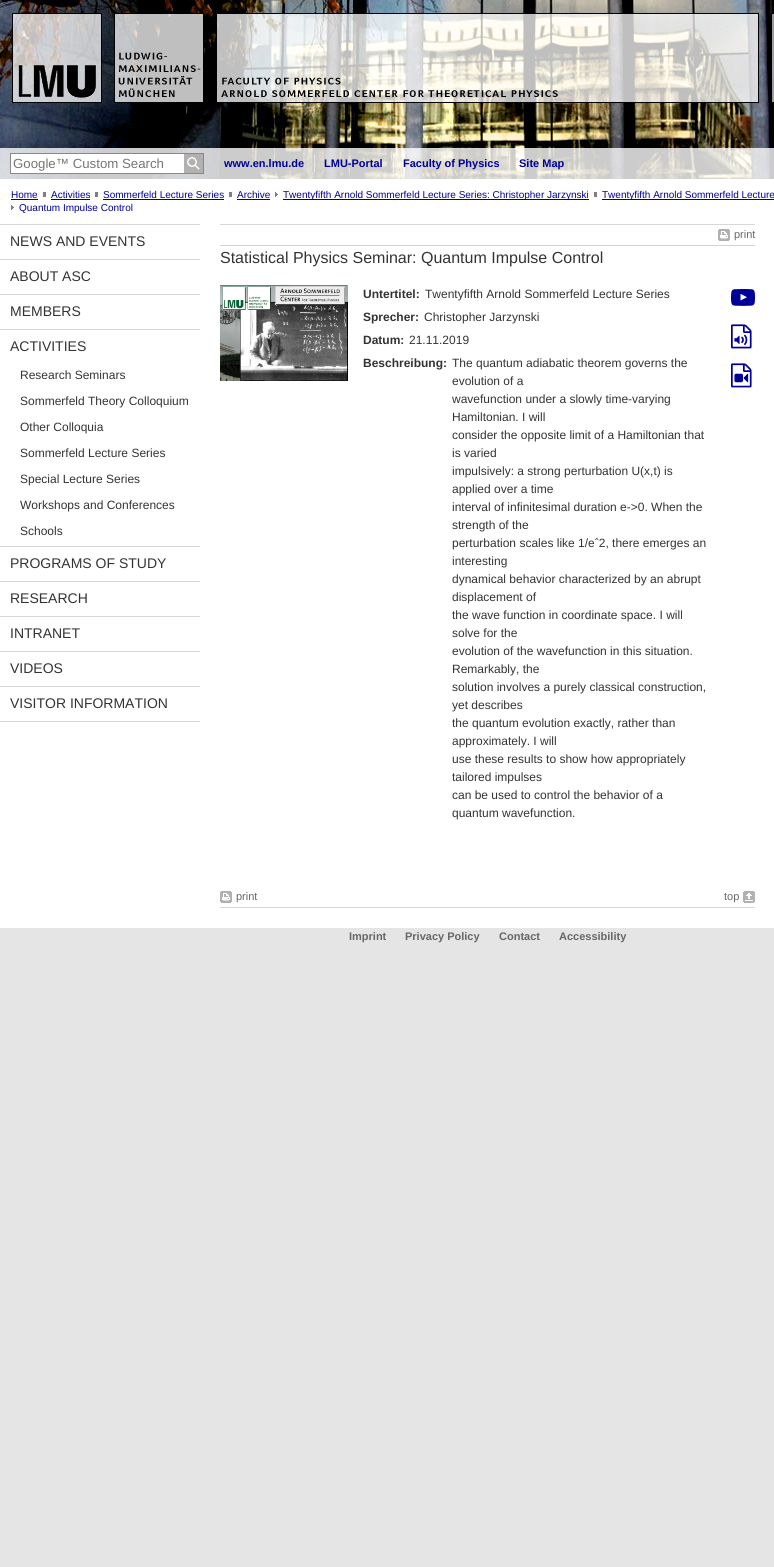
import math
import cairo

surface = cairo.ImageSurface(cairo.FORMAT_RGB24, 774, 1567)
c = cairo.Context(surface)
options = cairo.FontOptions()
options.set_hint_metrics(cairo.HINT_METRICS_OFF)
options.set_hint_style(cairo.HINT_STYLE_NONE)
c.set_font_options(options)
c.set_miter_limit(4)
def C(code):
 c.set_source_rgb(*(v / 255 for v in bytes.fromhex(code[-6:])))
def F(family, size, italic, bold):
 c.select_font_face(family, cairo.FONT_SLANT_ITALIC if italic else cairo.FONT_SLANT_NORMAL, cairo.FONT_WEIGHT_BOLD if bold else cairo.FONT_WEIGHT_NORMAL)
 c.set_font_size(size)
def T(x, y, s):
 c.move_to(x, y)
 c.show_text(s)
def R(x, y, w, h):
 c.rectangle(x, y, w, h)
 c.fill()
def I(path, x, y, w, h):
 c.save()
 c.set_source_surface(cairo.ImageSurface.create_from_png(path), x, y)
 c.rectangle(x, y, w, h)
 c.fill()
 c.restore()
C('e5e5e5')
c.paint()
C('ffffff')
R(0,179,774,749)
I('1.png',0,0,774,148)
I('2.png',0,148,774,31)
R(11,154,173,19)
c.rectangle(10.5,153.5,193,20)
C('888888')
c.set_line_width(1)
c.stroke()
F('Liberation Sans',13.25,0,0)
C('757575')
T(13,168,'Google™ Custom Search')
I('3.png',184,154,19,19)
F('Liberation Sans',11,0,1)
C('000099')
T(224,167,'www.en.lmu.de')
c.set_source_rgba(1,1,1,0.5)
R(314,155,1,17)
C('000099')
T(324,167,'LMU-Portal')
c.set_source_rgba(1,1,1,0.5)
R(393,155,1,17)
C('000099')
T(403,167,'Faculty of Physics')
c.set_source_rgba(1,1,1,0.5)
R(509,155,1,17)
C('000099')
T(519,167,'Site Map')
I('4.png',274,179,478,1)
F('Liberation Sans',10,0,0)
T(11,198,'Home')
R(11,199,27,1)
C('7f7f7f')
R(43,192,3,5)
C('000099')
T(51,198,'Activities')
R(51,199,39,1)
C('7f7f7f')
R(95,192,3,5)
C('000099')
T(103,198,'Sommerfeld Lecture Series')
R(103,199,121,1)
C('7f7f7f')
R(229,192,3,5)
C('000099')
T(237,198,'Archive')
R(237,199,33,1)
I('5.png',275,192,4,5)
R(283,199,306,1)
T(283,198,'Twentyfifth Arnold Sommerfeld Lecture Series: Christopher Jarzynski')
C('7f7f7f')
R(594,192,3,5)
C('000099')
R(602,199,172,1)
T(602,198,'Twentyfifth Arnold Sommerfeld Lecture')
I('5.png',11,205,4,5)
T(19,211,'Quantum Impulse Control')
C('d8d8d8')
R(0,224,200,1)
R(0,259,200,1)
F('Liberation Sans',14,0,0)
C('333333')
T(10,246,'NEWS AND EVENTS')
C('d8d8d8')
R(0,294,200,1)
C('333333')
T(10,281,'ABOUT ASC')
C('d8d8d8')
R(0,329,200,1)
C('333333')
T(10,316,'MEMBERS')
C('d8d8d8')
R(0,546,200,1)
C('333333')
T(10,351,'ACTIVITIES')
F('Liberation Sans',12,0,0)
T(20,379,'Research Seminars')
T(20,405,'Sommerfeld Theory Colloquium')
T(20,431,'Other Colloquia')
T(20,457,'Sommerfeld Lecture Series')
T(20,483,'Special Lecture Series')
T(20,509,'Workshops and Conferences')
T(20,535,'Schools')
C('d8d8d8')
R(0,581,200,1)
F('Liberation Sans',14,0,0)
C('333333')
T(10,568,'PROGRAMS OF STUDY')
C('d8d8d8')
R(0,616,200,1)
C('333333')
T(10,603,'RESEARCH')
C('d8d8d8')
R(0,651,200,1)
C('333333')
T(10,638,'INTRANET')
C('d8d8d8')
R(0,686,200,1)
C('333333')
T(10,673,'VIDEOS')
C('d8d8d8')
R(0,721,200,1)
C('333333')
T(10,708,'VISITOR INFORMATION')
C('d8d8d8')
R(220,224,535,1)
I('6.png',718,229,12,12)
F('Liberation Sans',11,0,0)
C('666666')
T(734,238,'print')
C('d2d2d2')
R(220,245,535,1)
F('Liberation Sans',16,0,0)
C('333333')
T(220,263,'Statistical Physics Seminar: Quantum Impulse Control')
I('7.png',220,285,128,96)
F('Liberation Sans',12,0,1)
T(363,298,'Untertitel:')
F('Liberation Sans',12,0,0)
T(425,298,'Twentyfifth Arnold Sommerfeld Lecture Series')
F('Liberation Sans',12,0,1)
T(363,321,'Sprecher:')
F('Liberation Sans',12,0,0)
T(424,321,'Christopher Jarzynski')
F('Liberation Sans',12,0,1)
T(363,344,'Datum:')
F('Liberation Sans',12,0,0)
T(409,344,'21.11.2019')
F('Liberation Sans',12,0,1)
T(363,367,'Beschreibung:')
F('Liberation Sans',12,0,0)
T(452,367,'The quantum adiabatic theorem governs the')
T(452,385,'evolution of a')
T(452,403,'wavefunction under a slowly time-varying')
T(452,421,'Hamiltonian. I will')
T(452,439,'consider the opposite limit of a Hamiltonian that')
T(452,457,'is varied')
T(452,475,'impulsively: a strong perturbation U(x,t) is')
T(452,493,'applied over a time')
T(452,511,'interval of infinitesimal duration e->0. When the')
T(452,529,'strength of the')
T(452,547,'perturbation scales like 1/eˆ2, there emerges an')
T(452,565,'interesting')
T(452,583,'dynamical behavior characterized by an abrupt')
T(452,601,'displacement of')
T(452,619,'the wave function in coordinate space. I will')
T(452,637,'solve for the')
T(452,655,'evolution of the wavefunction in this situation.')
T(452,673,'Remarkably, the')
T(452,691,'solution involves a purely classical construction,')
T(452,709,'yet describes')
T(452,727,'the quantum evolution exactly, rather than')
T(452,745,'approximately. I will')
T(452,763,'use these results to show how appropriately')
T(452,781,'tailored impulses')
T(452,799,'can be used to control the behavior of a')
T(452,817,'quantum wavefunction.')
I('8.png',731,289,24,17)
I('9.png',731,324,21,25)
I('10.png',731,363,21,25)
C('d8d8d8')
R(220,907,535,1)
I('6.png',220,891,12,12)
F('Liberation Sans',11,0,0)
C('666666')
T(236,900,'print')
I('11.png',743,891,12,12)
T(724,900,'top')
F('Liberation Sans',11,0,1)
T(349,940,'Imprint')
T(405,940,'Privacy Policy')
T(499,940,'Contact')
T(559,940,'Accessibility')
surface.write_to_png('o.png')
